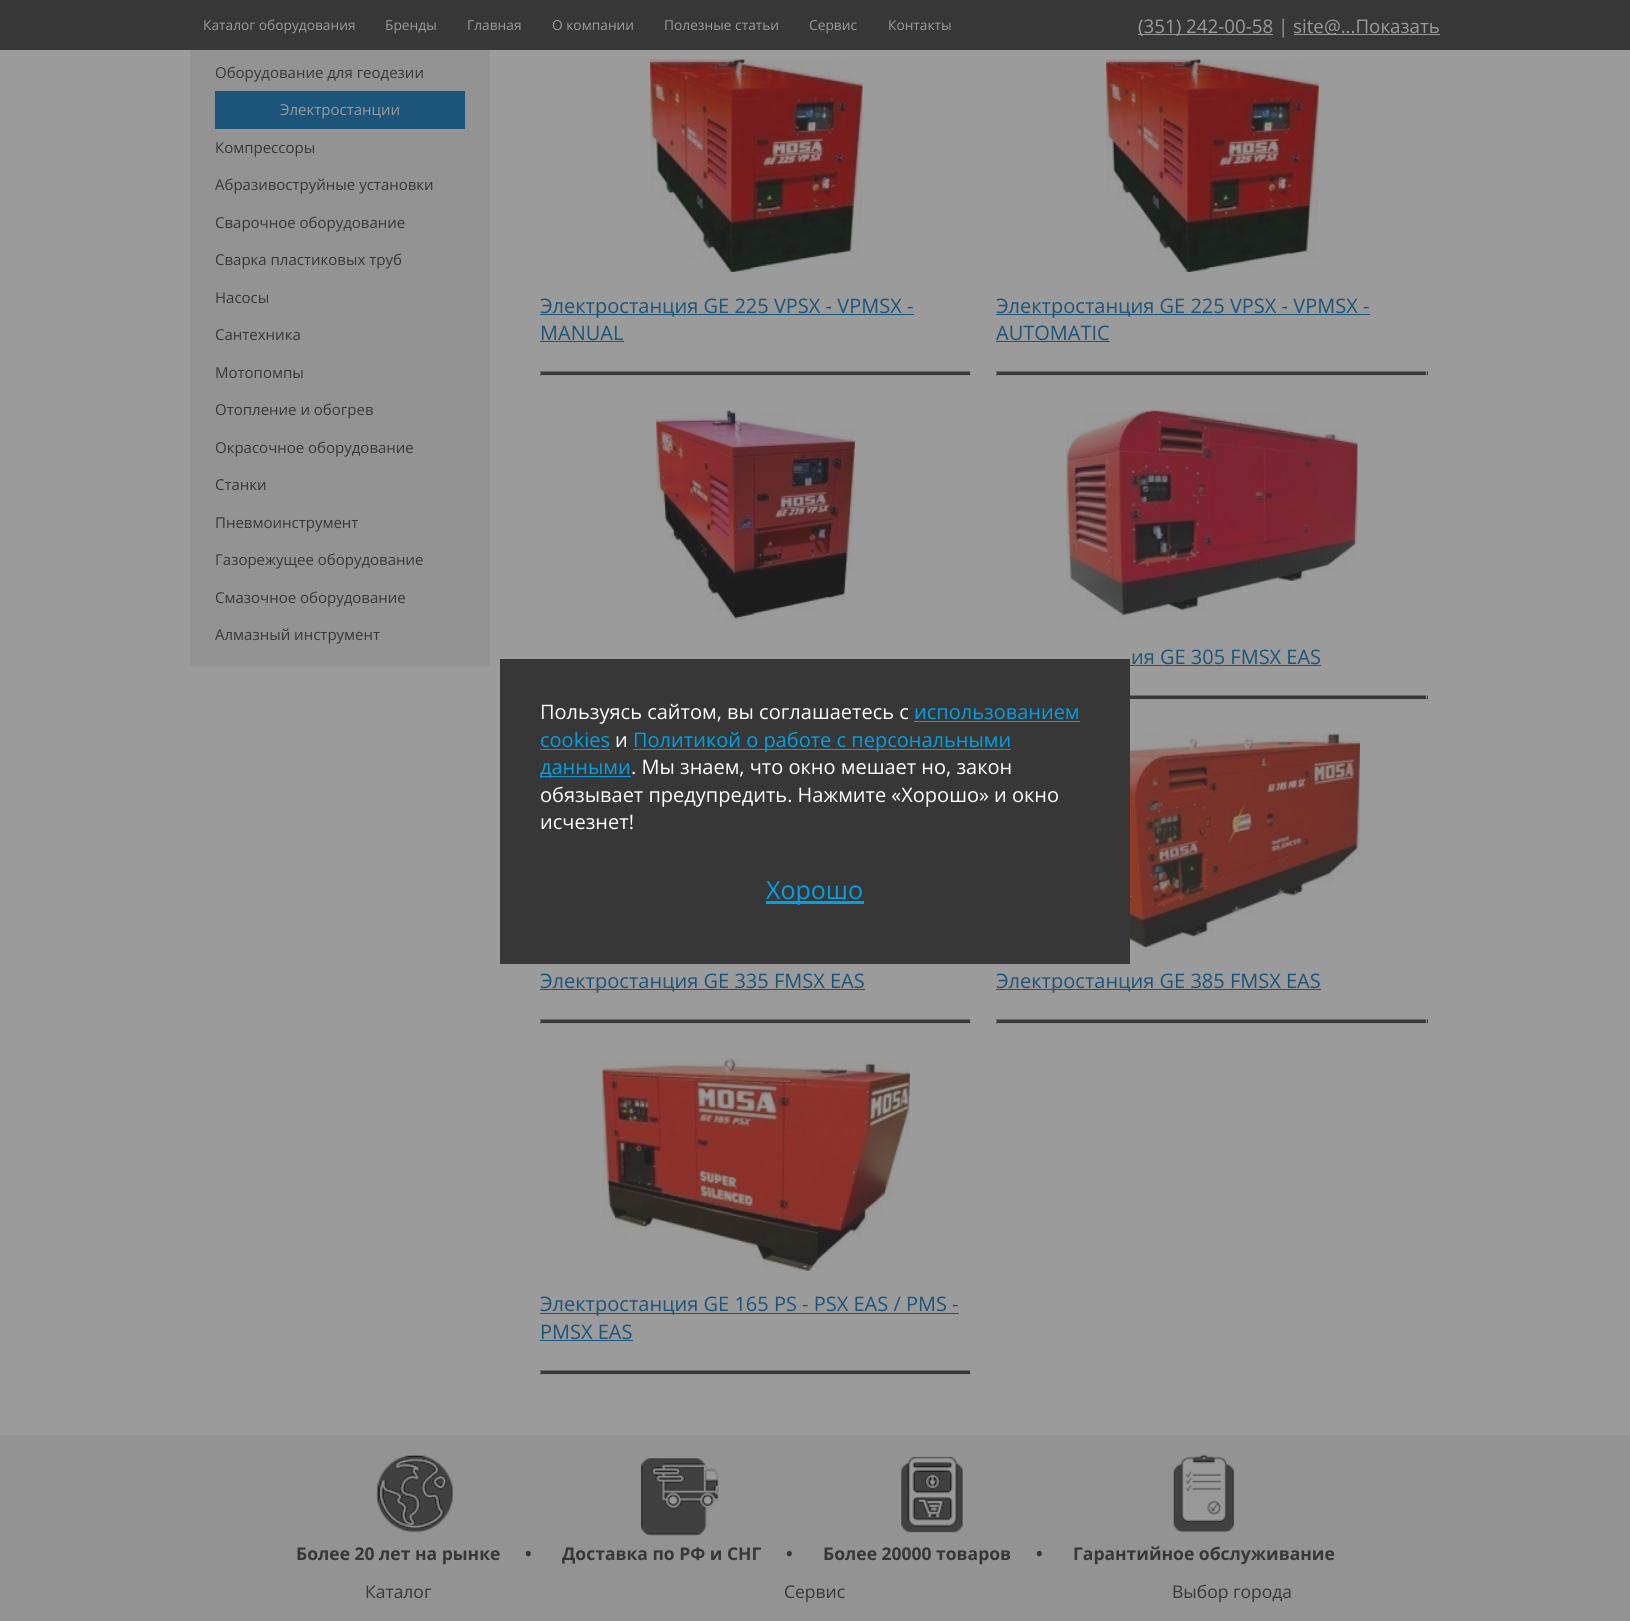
import math
import cairo

surface = cairo.ImageSurface(cairo.FORMAT_RGB24, 1630, 1621)
c = cairo.Context(surface)
options = cairo.FontOptions()
options.set_hint_metrics(cairo.HINT_METRICS_OFF)
options.set_hint_style(cairo.HINT_STYLE_NONE)
c.set_font_options(options)
c.set_miter_limit(4)
def C(code):
 c.set_source_rgb(*(v / 255 for v in bytes.fromhex(code[-6:])))
def F(family, size, italic, bold):
 c.select_font_face(family, cairo.FONT_SLANT_ITALIC if italic else cairo.FONT_SLANT_NORMAL, cairo.FONT_WEIGHT_BOLD if bold else cairo.FONT_WEIGHT_NORMAL)
 c.set_font_size(size)
def T(x, y, s):
 c.move_to(x, y)
 c.show_text(s)
def R(x, y, w, h):
 c.rectangle(x, y, w, h)
 c.fill()
def I(path, x, y, w, h):
 c.save()
 c.set_source_surface(cairo.ImageSurface.create_from_png(path), x, y)
 c.rectangle(x, y, w, h)
 c.fill()
 c.restore()
C('9b9b9b')
c.paint()
C('373737')
R(0,0,1630,50)
F('Open Sans',13.75,0,0)
C('9b9b9b')
T(203,30,'Каталог оборудования')
T(385,30,'Бренды')
T(467,30,'Главная')
T(552,30,'О компании')
T(664,30,'Полезные статьи')
T(809,30,'Сервис')
T(888,30,'Контакты')
R(1138,34,135,1)
F('Open Sans',18.75,0,0)
T(1138,33,'(351) 242-00-58 |')
R(1294,34,146,1)
T(1293,33,'site@...Показать')
C('939393')
R(190,50,300,616)
F('Open Sans',15,0,0)
C('373737')
T(215,78,'Оборудование для геодезии')
C('1c547a')
R(215,91,250,38)
C('9b9b9b')
T(280,115,'Электростанции')
C('373737')
T(215,153,'Компрессоры')
T(215,190,'Абразивоструйные установки')
T(215,228,'Сварочное оборудование')
T(215,265,'Сварка пластиковых труб')
T(215,303,'Насосы')
T(215,340,'Сантехника')
T(215,378,'Мотопомпы')
T(215,415,'Отопление и обогрев')
T(215,453,'Окрасочное оборудование')
T(215,490,'Станки')
T(215,528,'Пневмоинструмент')
T(215,565,'Газорежущее оборудование')
T(215,603,'Смазочное оборудование')
T(215,640,'Алмазный инструмент')
I('1.png',650,59,213,213)
C('1c547a')
R(540,314,374,1)
F('Open Sans',20,0,0)
T(540,313,'Электростанция GE 225 VPSX - VPMSX -')
T(540,340,'MANUAL')
R(540,341,84,1)
C('373737')
R(540,372,431,3)
C('6b6b6b')
R(540,371,431,1)
C('939393')
R(970,371,1,5)
R(540,375,431,1)
C('6b6b6b')
R(540,371,1,5)
I('2.png',1106,59,213,213)
C('1c547a')
R(996,314,374,1)
T(996,313,'Электростанция GE 225 VPSX - VPMSX -')
T(996,340,'AUTOMATIC')
R(996,341,114,1)
C('373737')
R(996,372,432,3)
C('6b6b6b')
R(996,371,432,1)
C('939393')
R(1426,371,1,5)
R(996,375,432,1)
C('6b6b6b')
R(996,371,1,5)
I('3.png',656,410,199,211)
I('4.png',1066,410,292,211)
C('1c547a')
T(1131,664,'ия GE 305 FMSX EAS')
R(1130,665,191,1)
C('373737')
R(1130,696,298,3)
C('6b6b6b')
R(1130,695,298,1)
C('939393')
R(1426,695,1,5)
R(1130,699,298,1)
C('1c547a')
R(540,989,325,1)
T(540,988,'Электростанция GE 335 FMSX EAS')
C('373737')
R(540,1020,431,3)
C('6b6b6b')
R(540,1019,431,1)
C('939393')
R(970,1019,1,5)
R(540,1023,431,1)
C('6b6b6b')
R(540,1019,1,5)
I('5.png',1130,734,230,213)
C('1c547a')
R(996,989,325,1)
T(996,988,'Электростанция GE 385 FMSX EAS')
C('373737')
R(996,1020,432,3)
C('6b6b6b')
R(996,1019,432,1)
C('939393')
R(1426,1019,1,5)
R(996,1023,432,1)
C('6b6b6b')
R(996,1019,1,5)
I('6.png',602,1058,308,213)
C('1c547a')
R(540,1313,419,1)
T(540,1311,'Электростанция GE 165 PS - PSX EAS / PMS -')
T(540,1339,'PMSX EAS')
R(540,1340,93,1)
C('373737')
R(540,1371,431,3)
C('6b6b6b')
R(540,1370,431,1)
C('939393')
R(970,1370,1,5)
R(540,1374,431,1)
C('6b6b6b')
R(540,1370,1,5)
C('373737')
R(500,659,630,305)
C('ffffff')
T(540,719,'Пользуясь сайтом, вы соглашаетесь с')
C('01a0e2')
T(914,719,'использованием')
R(914,721,166,1)
T(540,747,'cookies')
R(540,749,70,1)
C('ffffff')
T(615,747,'и')
C('01a0e2')
R(633,749,378,1)
T(633,747,'Политикой о работе с персональными')
R(540,776,91,1)
T(540,774,'данными')
C('ffffff')
T(631,774,'. Мы знаем, что окно мешает но, закон')
T(540,802,'обязывает предупредить. Нажмите «Хорошо» и окно')
T(540,829,'исчезнет!')
C('01a0e2')
R(766,901,98,3)
F('Open Sans',25,0,0)
T(766,899,'Хорошо')
C('939393')
R(0,1435,1630,186)
I('7.png',376,1454,77,79)
F('Open Sans',17.5,0,1)
C('373737')
T(296,1560,'Более 20 лет на рынке')
T(525,1560,'•')
I('8.png',640,1458,80,78)
T(562,1560,'Доставка по РФ и СНГ')
T(786,1560,'•')
I('9.png',901,1456,62,77)
T(823,1560,'Более 20000 товаров')
T(1036,1560,'•')
I('10.png',1173,1454,62,79)
T(1073,1560,'Гарантийное обслуживание')
F('Open Sans',17.5,0,0)
T(365,1598,'Каталог')
T(784,1598,'Сервис')
T(1172,1598,'Выбор города')
surface.write_to_png('o.png')
